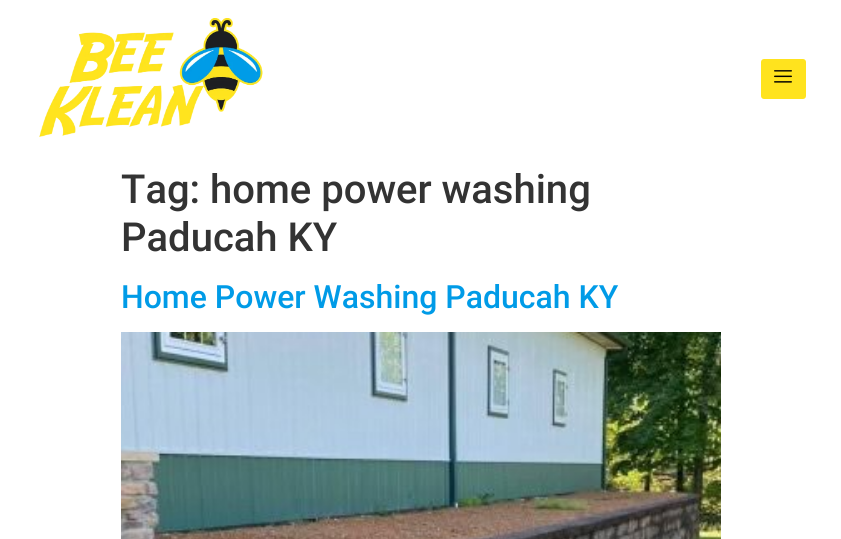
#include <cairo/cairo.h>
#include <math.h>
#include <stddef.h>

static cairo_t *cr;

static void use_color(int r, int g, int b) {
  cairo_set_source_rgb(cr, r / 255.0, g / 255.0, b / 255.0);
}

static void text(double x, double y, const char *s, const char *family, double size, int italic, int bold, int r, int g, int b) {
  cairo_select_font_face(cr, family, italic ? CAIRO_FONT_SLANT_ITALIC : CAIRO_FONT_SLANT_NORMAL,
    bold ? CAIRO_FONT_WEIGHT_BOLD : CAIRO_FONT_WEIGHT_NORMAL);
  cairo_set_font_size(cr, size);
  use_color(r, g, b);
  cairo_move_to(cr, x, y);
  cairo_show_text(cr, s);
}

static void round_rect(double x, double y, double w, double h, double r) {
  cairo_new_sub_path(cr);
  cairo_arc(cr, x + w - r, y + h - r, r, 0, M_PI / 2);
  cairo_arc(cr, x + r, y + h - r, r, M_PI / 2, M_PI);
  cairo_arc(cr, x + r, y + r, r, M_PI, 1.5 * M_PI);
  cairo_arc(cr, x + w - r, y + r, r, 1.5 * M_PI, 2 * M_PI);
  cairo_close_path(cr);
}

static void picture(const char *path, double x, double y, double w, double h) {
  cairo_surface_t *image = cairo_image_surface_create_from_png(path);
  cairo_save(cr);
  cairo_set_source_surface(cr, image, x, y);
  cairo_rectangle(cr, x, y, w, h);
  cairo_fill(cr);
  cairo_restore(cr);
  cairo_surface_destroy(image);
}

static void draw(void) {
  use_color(255, 255, 255);
  cairo_paint(cr);
  picture("img_01.png", 39, 18, 224, 119);
  use_color(255, 227, 30);
  round_rect(761, 59, 45, 40, 3);
  cairo_fill(cr);
  picture("img_02.png", 774, 70, 18, 13);
  picture("img_03.png", 121, 332, 600, 207);
  text(121, 203, "Tag: home power washing", "Roboto Medium", 40, 0, 0, 51, 51, 51);
  text(121, 251, "Paducah KY", "Roboto Medium", 40, 0, 0, 51, 51, 51);
  text(121, 308, "Home Power Washing Paducah KY", "Roboto Medium", 32, 0, 0, 0, 155, 231);
}

int main(void) {
  cairo_surface_t *surface = cairo_image_surface_create(CAIRO_FORMAT_RGB24, 841, 539);
  cr = cairo_create(surface);
  cairo_font_options_t *options = cairo_font_options_create();
  cairo_font_options_set_hint_metrics(options, CAIRO_HINT_METRICS_OFF);
  cairo_font_options_set_hint_style(options, CAIRO_HINT_STYLE_NONE);
  cairo_set_font_options(cr, options);
  cairo_set_miter_limit(cr, 4);
  draw();
  cairo_surface_write_to_png(surface, "out.png");
  cairo_font_options_destroy(options);
  cairo_destroy(cr);
  cairo_surface_destroy(surface);
  return 0;
}
